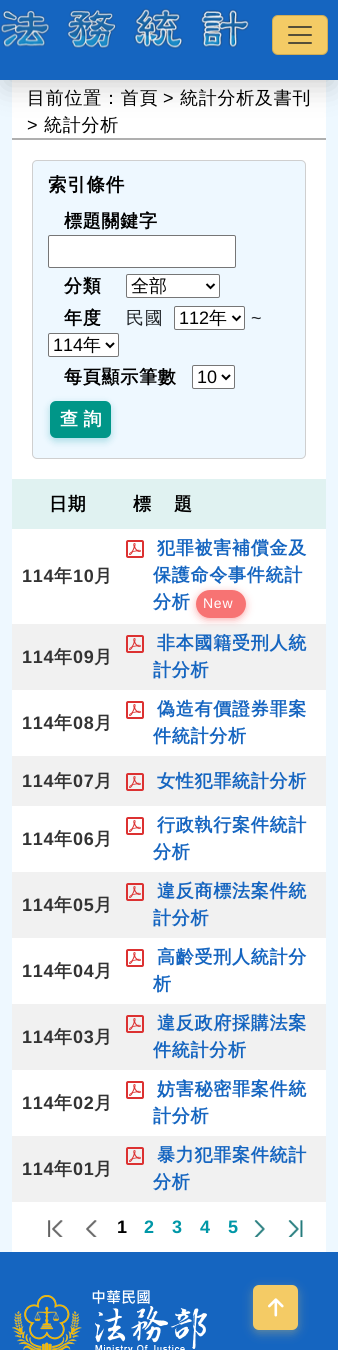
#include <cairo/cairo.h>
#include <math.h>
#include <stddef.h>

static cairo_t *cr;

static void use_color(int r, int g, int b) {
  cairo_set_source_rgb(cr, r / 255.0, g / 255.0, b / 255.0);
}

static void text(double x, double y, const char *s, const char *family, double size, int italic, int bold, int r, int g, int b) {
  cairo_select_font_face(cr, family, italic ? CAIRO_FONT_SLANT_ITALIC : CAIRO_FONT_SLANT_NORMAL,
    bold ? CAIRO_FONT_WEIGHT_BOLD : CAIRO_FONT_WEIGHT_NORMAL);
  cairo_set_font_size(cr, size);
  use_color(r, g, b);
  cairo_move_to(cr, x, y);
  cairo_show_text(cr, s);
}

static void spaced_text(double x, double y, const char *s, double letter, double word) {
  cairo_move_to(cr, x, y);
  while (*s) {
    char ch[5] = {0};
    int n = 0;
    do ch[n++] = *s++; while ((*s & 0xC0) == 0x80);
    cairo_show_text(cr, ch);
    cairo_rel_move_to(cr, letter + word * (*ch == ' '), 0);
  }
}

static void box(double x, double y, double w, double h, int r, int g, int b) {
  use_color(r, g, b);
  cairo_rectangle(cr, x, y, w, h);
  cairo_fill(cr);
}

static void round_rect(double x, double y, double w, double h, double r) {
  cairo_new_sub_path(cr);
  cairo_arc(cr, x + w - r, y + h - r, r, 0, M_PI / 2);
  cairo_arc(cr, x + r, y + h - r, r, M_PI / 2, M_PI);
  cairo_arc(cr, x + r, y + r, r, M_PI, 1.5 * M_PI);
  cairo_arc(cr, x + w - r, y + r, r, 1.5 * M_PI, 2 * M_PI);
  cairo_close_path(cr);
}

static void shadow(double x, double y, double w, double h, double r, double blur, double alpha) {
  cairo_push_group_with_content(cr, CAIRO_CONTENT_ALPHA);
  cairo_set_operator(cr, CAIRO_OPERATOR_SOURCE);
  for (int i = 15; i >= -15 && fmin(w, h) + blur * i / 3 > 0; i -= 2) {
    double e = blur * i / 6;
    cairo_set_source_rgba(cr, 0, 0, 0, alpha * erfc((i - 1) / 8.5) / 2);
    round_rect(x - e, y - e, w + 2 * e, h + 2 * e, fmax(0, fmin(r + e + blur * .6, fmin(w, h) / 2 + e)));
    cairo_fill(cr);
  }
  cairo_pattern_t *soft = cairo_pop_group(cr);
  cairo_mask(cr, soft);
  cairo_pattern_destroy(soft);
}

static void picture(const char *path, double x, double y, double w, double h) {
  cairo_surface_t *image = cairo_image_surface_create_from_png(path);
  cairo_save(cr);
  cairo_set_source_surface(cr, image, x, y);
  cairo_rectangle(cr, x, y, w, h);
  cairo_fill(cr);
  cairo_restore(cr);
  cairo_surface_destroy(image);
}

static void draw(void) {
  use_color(238, 248, 255);
  cairo_paint(cr);
  box(12, 80, 314, 58, 255, 255, 255);
  use_color(0, 0, 0);
  shadow(5, 15, 328, 70, 0, 15, 0.2);
  box(0, 0, 338, 80, 21, 101, 192);
  picture("img_01.png", 0, 8, 250, 41);
  use_color(244, 203, 101);
  round_rect(272, 15, 56, 40, 6);
  cairo_fill(cr);
  round_rect(272.5, 15.5, 55, 39, 5.5);
  cairo_set_source_rgba(cr, 0, 0, 0, 0.15);
  cairo_set_line_width(cr, 1);
  cairo_stroke(cr);
  picture("img_02.png", 288, 26, 24, 18);
  box(12, 138, 314, 2, 175, 175, 175);
  box(12, 140, 314, 339, 255, 255, 255);
  use_color(238, 248, 255);
  round_rect(32.5, 160.5, 273, 298, 4.5);
  cairo_fill_preserve(cr);
  use_color(207, 207, 207);
  cairo_stroke(cr);
  use_color(255, 255, 255);
  round_rect(48.5, 235.5, 187, 32, 1.5);
  cairo_fill_preserve(cr);
  use_color(118, 118, 118);
  cairo_stroke(cr);
  use_color(255, 255, 255);
  round_rect(126.5, 274.5, 93, 23, 1.5);
  cairo_fill_preserve(cr);
  use_color(118, 118, 118);
  cairo_stroke(cr);
  cairo_new_path(cr);
  cairo_move_to(cr, 206.5, 284);
  cairo_line_to(cr, 210.5, 288);
  cairo_line_to(cr, 214.5, 284);
  use_color(0, 0, 0);
  cairo_set_line_width(cr, 2);
  cairo_stroke(cr);
  use_color(255, 255, 255);
  round_rect(174.5, 306.5, 70, 23, 1.5);
  cairo_fill_preserve(cr);
  use_color(118, 118, 118);
  cairo_set_line_width(cr, 1);
  cairo_stroke(cr);
  cairo_new_path(cr);
  cairo_move_to(cr, 232.5, 316);
  cairo_line_to(cr, 236.5, 320);
  cairo_line_to(cr, 240.5, 316);
  use_color(0, 0, 0);
  cairo_set_line_width(cr, 2);
  cairo_stroke(cr);
  use_color(255, 255, 255);
  round_rect(48.5, 333.5, 70, 23, 1.5);
  cairo_fill_preserve(cr);
  use_color(118, 118, 118);
  cairo_set_line_width(cr, 1);
  cairo_stroke(cr);
  cairo_new_path(cr);
  cairo_move_to(cr, 106, 343);
  cairo_line_to(cr, 110, 347);
  cairo_line_to(cr, 114, 343);
  use_color(0, 0, 0);
  cairo_set_line_width(cr, 2);
  cairo_stroke(cr);
  use_color(255, 255, 255);
  round_rect(192.5, 365.5, 42, 23, 1.5);
  cairo_fill_preserve(cr);
  use_color(118, 118, 118);
  cairo_set_line_width(cr, 1);
  cairo_stroke(cr);
  cairo_new_path(cr);
  cairo_move_to(cr, 222, 375);
  cairo_line_to(cr, 226, 379);
  cairo_line_to(cr, 230, 375);
  use_color(0, 0, 0);
  cairo_set_line_width(cr, 2);
  cairo_stroke(cr);
  use_color(0, 151, 167);
  shadow(50, 404, 61, 37, 6, 4, 0.3);
  use_color(0, 150, 136);
  round_rect(50, 401, 61, 37, 6);
  cairo_fill(cr);
  box(12, 479, 314, 50, 224, 242, 241);
  box(12, 529, 314, 95, 255, 255, 255);
  picture("img_03.png", 126, 540, 18, 18);
  box(12, 624, 314, 66, 241, 241, 241);
  use_color(247, 115, 115);
  shadow(199, 595, 44, 22, 11, 5, 1);
  use_color(247, 115, 115);
  round_rect(196, 590, 50, 28, 14);
  cairo_fill(cr);
  picture("img_04.png", 126, 635, 18, 18);
  box(12, 690, 314, 66, 255, 255, 255);
  picture("img_03.png", 126, 701, 18, 18);
  box(12, 756, 314, 50, 241, 241, 241);
  picture("img_04.png", 126, 773, 18, 18);
  box(12, 806, 314, 66, 255, 255, 255);
  picture("img_03.png", 126, 817, 18, 18);
  box(12, 872, 314, 66, 241, 241, 241);
  picture("img_04.png", 126, 883, 18, 18);
  box(12, 938, 314, 66, 255, 255, 255);
  picture("img_03.png", 126, 949, 18, 18);
  box(12, 1004, 314, 66, 241, 241, 241);
  picture("img_04.png", 126, 1015, 18, 18);
  box(12, 1070, 314, 66, 255, 255, 255);
  picture("img_03.png", 126, 1081, 18, 18);
  box(12, 1136, 314, 66, 241, 241, 241);
  picture("img_04.png", 126, 1147, 18, 18);
  box(12, 1202, 314, 50, 255, 255, 255);
  picture("img_05.png", 48, 1220, 15, 17);
  picture("img_06.png", 86, 1220, 11, 17);
  picture("img_07.png", 254, 1220, 11, 17);
  picture("img_08.png", 288, 1220, 15, 17);
  box(0, 1252, 338, 98, 21, 101, 192);
  picture("img_09.png", 12, 1290, 195, 60);
  use_color(244, 203, 101);
  shadow(253, 1288, 45, 45, 6, 5, 0.35);
  use_color(244, 203, 101);
  round_rect(253, 1285, 45, 45, 6);
  cairo_fill(cr);
  picture("img_10.png", 268, 1298, 16, 19);
  cairo_select_font_face(cr, "WenQuanYi Zen Hei Medium", CAIRO_FONT_SLANT_NORMAL, CAIRO_FONT_WEIGHT_NORMAL);
  cairo_set_font_size(cr, 18);
  use_color(0, 0, 0);
  spaced_text(27, 104, "目前位置：首頁", 0.75, 0);
  cairo_select_font_face(cr, "Liberation Sans", CAIRO_FONT_SLANT_NORMAL, CAIRO_FONT_WEIGHT_NORMAL);
  spaced_text(163, 104, ">", 0.75, 0);
  cairo_select_font_face(cr, "WenQuanYi Zen Hei Medium", CAIRO_FONT_SLANT_NORMAL, CAIRO_FONT_WEIGHT_NORMAL);
  spaced_text(180, 104, "統計分析及書刊", 0.75, 0);
  cairo_select_font_face(cr, "Liberation Sans", CAIRO_FONT_SLANT_NORMAL, CAIRO_FONT_WEIGHT_NORMAL);
  spaced_text(27, 131, ">", 0.75, 0);
  cairo_select_font_face(cr, "WenQuanYi Zen Hei Medium", CAIRO_FONT_SLANT_NORMAL, CAIRO_FONT_WEIGHT_NORMAL);
  spaced_text(44, 131, "統計分析", 0.75, 0);
  cairo_select_font_face(cr, "WenQuanYi Zen Hei", CAIRO_FONT_SLANT_NORMAL, CAIRO_FONT_WEIGHT_BOLD);
  cairo_set_font_size(cr, 18.5);
  spaced_text(48, 191, "索引條件", 0.75, 0);
  cairo_set_font_size(cr, 18);
  spaced_text(64, 227, "標題關鍵字", 0.75, 0);
  spaced_text(64, 292, "分類", 0.75, 0);
  text(131, 292, "全部", "WenQuanYi Zen Hei Medium", 18, 0, 0, 0, 0, 0);
  cairo_select_font_face(cr, "WenQuanYi Zen Hei", CAIRO_FONT_SLANT_NORMAL, CAIRO_FONT_WEIGHT_BOLD);
  spaced_text(64, 324, "年度", 0.75, 0);
  cairo_select_font_face(cr, "WenQuanYi Zen Hei Medium", CAIRO_FONT_SLANT_NORMAL, CAIRO_FONT_WEIGHT_NORMAL);
  use_color(33, 37, 41);
  spaced_text(126, 324, "民國", 0.75, 0);
  text(179, 324, "112", "Liberation Sans", 18, 0, 0, 0, 0, 0);
  text(209, 324, "年", "WenQuanYi Zen Hei Medium", 18, 0, 0, 0, 0, 0);
  cairo_select_font_face(cr, "Liberation Sans", CAIRO_FONT_SLANT_NORMAL, CAIRO_FONT_WEIGHT_NORMAL);
  use_color(33, 37, 41);
  spaced_text(251, 324, "~", 0.75, 0);
  text(53, 351, "114", "Liberation Sans", 18, 0, 0, 0, 0, 0);
  text(83, 351, "年", "WenQuanYi Zen Hei Medium", 18, 0, 0, 0, 0, 0);
  cairo_select_font_face(cr, "WenQuanYi Zen Hei", CAIRO_FONT_SLANT_NORMAL, CAIRO_FONT_WEIGHT_BOLD);
  spaced_text(64, 383, "每頁顯示筆數", 0.75, 0);
  text(197, 383, "10", "Liberation Sans", 18, 0, 0, 0, 0, 0);
  text(60, 425, "查 詢", "WenQuanYi Zen Hei", 18, 0, 1, 255, 255, 255);
  use_color(0, 0, 0);
  spaced_text(49, 510, "日期", 0.75, 0);
  spaced_text(133, 510, "標", 0.75, 0);
  spaced_text(174, 510, "題", 0.75, 0);
  cairo_select_font_face(cr, "Liberation Sans", CAIRO_FONT_SLANT_NORMAL, CAIRO_FONT_WEIGHT_BOLD);
  use_color(51, 51, 51);
  spaced_text(22, 582, "114", 0.75, 0);
  cairo_select_font_face(cr, "WenQuanYi Zen Hei", CAIRO_FONT_SLANT_NORMAL, CAIRO_FONT_WEIGHT_BOLD);
  spaced_text(54, 582, "年", 0.75, 0);
  cairo_select_font_face(cr, "Liberation Sans", CAIRO_FONT_SLANT_NORMAL, CAIRO_FONT_WEIGHT_BOLD);
  spaced_text(73, 582, "10", 0.75, 0);
  cairo_select_font_face(cr, "WenQuanYi Zen Hei", CAIRO_FONT_SLANT_NORMAL, CAIRO_FONT_WEIGHT_BOLD);
  spaced_text(94, 582, "月", 0.75, 0);
  use_color(21, 101, 192);
  spaced_text(157, 554, "犯罪被害補償金及", 0.75, 0);
  spaced_text(153, 581, "保護命令事件統計", 0.75, 0);
  spaced_text(153, 608, "分析", 0.75, 0);
  cairo_select_font_face(cr, "Liberation Sans", CAIRO_FONT_SLANT_NORMAL, CAIRO_FONT_WEIGHT_NORMAL);
  cairo_set_font_size(cr, 14);
  use_color(255, 255, 255);
  spaced_text(203, 608, "New", 0.75, 0);
  cairo_select_font_face(cr, "Liberation Sans", CAIRO_FONT_SLANT_NORMAL, CAIRO_FONT_WEIGHT_BOLD);
  cairo_set_font_size(cr, 18);
  use_color(51, 51, 51);
  spaced_text(22, 663, "114", 0.75, 0);
  cairo_select_font_face(cr, "WenQuanYi Zen Hei", CAIRO_FONT_SLANT_NORMAL, CAIRO_FONT_WEIGHT_BOLD);
  spaced_text(54, 663, "年", 0.75, 0);
  cairo_select_font_face(cr, "Liberation Sans", CAIRO_FONT_SLANT_NORMAL, CAIRO_FONT_WEIGHT_BOLD);
  spaced_text(73, 663, "09", 0.75, 0);
  cairo_select_font_face(cr, "WenQuanYi Zen Hei", CAIRO_FONT_SLANT_NORMAL, CAIRO_FONT_WEIGHT_BOLD);
  spaced_text(94, 663, "月", 0.75, 0);
  use_color(21, 101, 192);
  spaced_text(157, 649, "非本國籍受刑人統", 0.75, 0);
  spaced_text(153, 676, "計分析", 0.75, 0);
  cairo_select_font_face(cr, "Liberation Sans", CAIRO_FONT_SLANT_NORMAL, CAIRO_FONT_WEIGHT_BOLD);
  use_color(51, 51, 51);
  spaced_text(22, 729, "114", 0.75, 0);
  cairo_select_font_face(cr, "WenQuanYi Zen Hei", CAIRO_FONT_SLANT_NORMAL, CAIRO_FONT_WEIGHT_BOLD);
  spaced_text(54, 729, "年", 0.75, 0);
  cairo_select_font_face(cr, "Liberation Sans", CAIRO_FONT_SLANT_NORMAL, CAIRO_FONT_WEIGHT_BOLD);
  spaced_text(73, 729, "08", 0.75, 0);
  cairo_select_font_face(cr, "WenQuanYi Zen Hei", CAIRO_FONT_SLANT_NORMAL, CAIRO_FONT_WEIGHT_BOLD);
  spaced_text(94, 729, "月", 0.75, 0);
  use_color(21, 101, 192);
  spaced_text(157, 715, "偽造有價證券罪案", 0.75, 0);
  spaced_text(153, 742, "件統計分析", 0.75, 0);
  cairo_select_font_face(cr, "Liberation Sans", CAIRO_FONT_SLANT_NORMAL, CAIRO_FONT_WEIGHT_BOLD);
  use_color(51, 51, 51);
  spaced_text(22, 787, "114", 0.75, 0);
  cairo_select_font_face(cr, "WenQuanYi Zen Hei", CAIRO_FONT_SLANT_NORMAL, CAIRO_FONT_WEIGHT_BOLD);
  spaced_text(54, 787, "年", 0.75, 0);
  cairo_select_font_face(cr, "Liberation Sans", CAIRO_FONT_SLANT_NORMAL, CAIRO_FONT_WEIGHT_BOLD);
  spaced_text(73, 787, "07", 0.75, 0);
  cairo_select_font_face(cr, "WenQuanYi Zen Hei", CAIRO_FONT_SLANT_NORMAL, CAIRO_FONT_WEIGHT_BOLD);
  spaced_text(94, 787, "月", 0.75, 0);
  use_color(21, 101, 192);
  spaced_text(157, 787, "女性犯罪統計分析", 0.75, 0);
  cairo_select_font_face(cr, "Liberation Sans", CAIRO_FONT_SLANT_NORMAL, CAIRO_FONT_WEIGHT_BOLD);
  use_color(51, 51, 51);
  spaced_text(22, 845, "114", 0.75, 0);
  cairo_select_font_face(cr, "WenQuanYi Zen Hei", CAIRO_FONT_SLANT_NORMAL, CAIRO_FONT_WEIGHT_BOLD);
  spaced_text(54, 845, "年", 0.75, 0);
  cairo_select_font_face(cr, "Liberation Sans", CAIRO_FONT_SLANT_NORMAL, CAIRO_FONT_WEIGHT_BOLD);
  spaced_text(73, 845, "06", 0.75, 0);
  cairo_select_font_face(cr, "WenQuanYi Zen Hei", CAIRO_FONT_SLANT_NORMAL, CAIRO_FONT_WEIGHT_BOLD);
  spaced_text(94, 845, "月", 0.75, 0);
  use_color(21, 101, 192);
  spaced_text(157, 831, "行政執行案件統計", 0.75, 0);
  spaced_text(153, 858, "分析", 0.75, 0);
  cairo_select_font_face(cr, "Liberation Sans", CAIRO_FONT_SLANT_NORMAL, CAIRO_FONT_WEIGHT_BOLD);
  use_color(51, 51, 51);
  spaced_text(22, 911, "114", 0.75, 0);
  cairo_select_font_face(cr, "WenQuanYi Zen Hei", CAIRO_FONT_SLANT_NORMAL, CAIRO_FONT_WEIGHT_BOLD);
  spaced_text(54, 911, "年", 0.75, 0);
  cairo_select_font_face(cr, "Liberation Sans", CAIRO_FONT_SLANT_NORMAL, CAIRO_FONT_WEIGHT_BOLD);
  spaced_text(73, 911, "05", 0.75, 0);
  cairo_select_font_face(cr, "WenQuanYi Zen Hei", CAIRO_FONT_SLANT_NORMAL, CAIRO_FONT_WEIGHT_BOLD);
  spaced_text(94, 911, "月", 0.75, 0);
  use_color(21, 101, 192);
  spaced_text(157, 897, "違反商標法案件統", 0.75, 0);
  spaced_text(153, 924, "計分析", 0.75, 0);
  cairo_select_font_face(cr, "Liberation Sans", CAIRO_FONT_SLANT_NORMAL, CAIRO_FONT_WEIGHT_BOLD);
  use_color(51, 51, 51);
  spaced_text(22, 977, "114", 0.75, 0);
  cairo_select_font_face(cr, "WenQuanYi Zen Hei", CAIRO_FONT_SLANT_NORMAL, CAIRO_FONT_WEIGHT_BOLD);
  spaced_text(54, 977, "年", 0.75, 0);
  cairo_select_font_face(cr, "Liberation Sans", CAIRO_FONT_SLANT_NORMAL, CAIRO_FONT_WEIGHT_BOLD);
  spaced_text(73, 977, "04", 0.75, 0);
  cairo_select_font_face(cr, "WenQuanYi Zen Hei", CAIRO_FONT_SLANT_NORMAL, CAIRO_FONT_WEIGHT_BOLD);
  spaced_text(94, 977, "月", 0.75, 0);
  use_color(21, 101, 192);
  spaced_text(157, 963, "高齡受刑人統計分", 0.75, 0);
  spaced_text(153, 990, "析", 0.75, 0);
  cairo_select_font_face(cr, "Liberation Sans", CAIRO_FONT_SLANT_NORMAL, CAIRO_FONT_WEIGHT_BOLD);
  use_color(51, 51, 51);
  spaced_text(22, 1043, "114", 0.75, 0);
  cairo_select_font_face(cr, "WenQuanYi Zen Hei", CAIRO_FONT_SLANT_NORMAL, CAIRO_FONT_WEIGHT_BOLD);
  spaced_text(54, 1043, "年", 0.75, 0);
  cairo_select_font_face(cr, "Liberation Sans", CAIRO_FONT_SLANT_NORMAL, CAIRO_FONT_WEIGHT_BOLD);
  spaced_text(73, 1043, "03", 0.75, 0);
  cairo_select_font_face(cr, "WenQuanYi Zen Hei", CAIRO_FONT_SLANT_NORMAL, CAIRO_FONT_WEIGHT_BOLD);
  spaced_text(94, 1043, "月", 0.75, 0);
  use_color(21, 101, 192);
  spaced_text(157, 1029, "違反政府採購法案", 0.75, 0);
  spaced_text(153, 1056, "件統計分析", 0.75, 0);
  cairo_select_font_face(cr, "Liberation Sans", CAIRO_FONT_SLANT_NORMAL, CAIRO_FONT_WEIGHT_BOLD);
  use_color(51, 51, 51);
  spaced_text(22, 1109, "114", 0.75, 0);
  cairo_select_font_face(cr, "WenQuanYi Zen Hei", CAIRO_FONT_SLANT_NORMAL, CAIRO_FONT_WEIGHT_BOLD);
  spaced_text(54, 1109, "年", 0.75, 0);
  cairo_select_font_face(cr, "Liberation Sans", CAIRO_FONT_SLANT_NORMAL, CAIRO_FONT_WEIGHT_BOLD);
  spaced_text(73, 1109, "02", 0.75, 0);
  cairo_select_font_face(cr, "WenQuanYi Zen Hei", CAIRO_FONT_SLANT_NORMAL, CAIRO_FONT_WEIGHT_BOLD);
  spaced_text(94, 1109, "月", 0.75, 0);
  use_color(21, 101, 192);
  spaced_text(157, 1095, "妨害秘密罪案件統", 0.75, 0);
  spaced_text(153, 1122, "計分析", 0.75, 0);
  cairo_select_font_face(cr, "Liberation Sans", CAIRO_FONT_SLANT_NORMAL, CAIRO_FONT_WEIGHT_BOLD);
  use_color(51, 51, 51);
  spaced_text(22, 1175, "114", 0.75, 0);
  cairo_select_font_face(cr, "WenQuanYi Zen Hei", CAIRO_FONT_SLANT_NORMAL, CAIRO_FONT_WEIGHT_BOLD);
  spaced_text(54, 1175, "年", 0.75, 0);
  cairo_select_font_face(cr, "Liberation Sans", CAIRO_FONT_SLANT_NORMAL, CAIRO_FONT_WEIGHT_BOLD);
  spaced_text(73, 1175, "01", 0.75, 0);
  cairo_select_font_face(cr, "WenQuanYi Zen Hei", CAIRO_FONT_SLANT_NORMAL, CAIRO_FONT_WEIGHT_BOLD);
  spaced_text(94, 1175, "月", 0.75, 0);
  use_color(21, 101, 192);
  spaced_text(157, 1161, "暴力犯罪案件統計", 0.75, 0);
  spaced_text(153, 1188, "分析", 0.75, 0);
  cairo_select_font_face(cr, "Liberation Sans", CAIRO_FONT_SLANT_NORMAL, CAIRO_FONT_WEIGHT_BOLD);
  use_color(0, 0, 0);
  spaced_text(117, 1233, "1", 0.75, 0);
  use_color(0, 151, 167);
  spaced_text(144, 1233, "2", 0.75, 0);
  spaced_text(172, 1233, "3", 0.75, 0);
  spaced_text(200, 1233, "4", 0.75, 0);
  spaced_text(228, 1233, "5", 0.75, 0);
}

int main(void) {
  cairo_surface_t *surface = cairo_image_surface_create(CAIRO_FORMAT_RGB24, 338, 1350);
  cr = cairo_create(surface);
  cairo_font_options_t *options = cairo_font_options_create();
  cairo_font_options_set_hint_metrics(options, CAIRO_HINT_METRICS_OFF);
  cairo_font_options_set_hint_style(options, CAIRO_HINT_STYLE_NONE);
  cairo_set_font_options(cr, options);
  cairo_set_miter_limit(cr, 4);
  draw();
  cairo_surface_write_to_png(surface, "out.png");
  cairo_font_options_destroy(options);
  cairo_destroy(cr);
  cairo_surface_destroy(surface);
  return 0;
}
